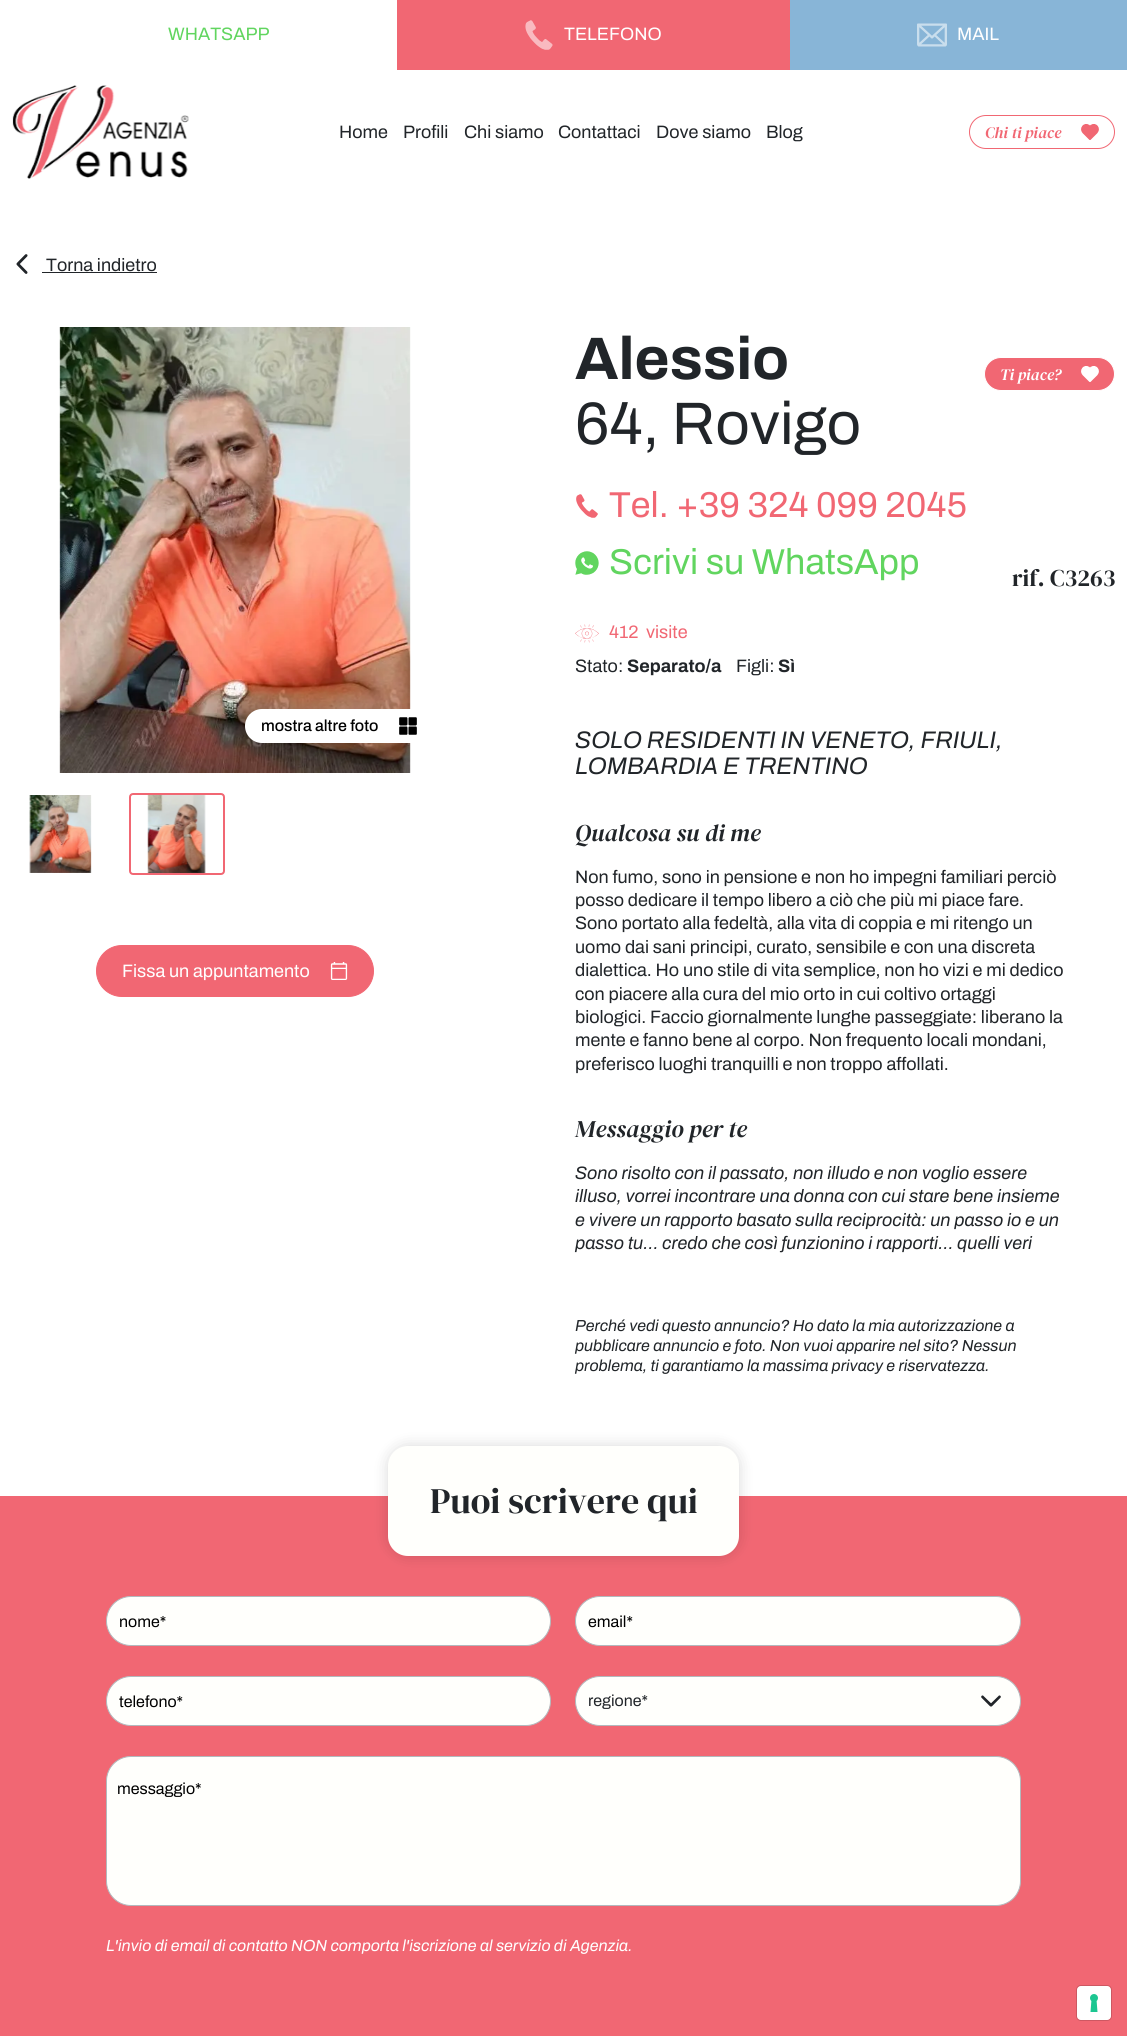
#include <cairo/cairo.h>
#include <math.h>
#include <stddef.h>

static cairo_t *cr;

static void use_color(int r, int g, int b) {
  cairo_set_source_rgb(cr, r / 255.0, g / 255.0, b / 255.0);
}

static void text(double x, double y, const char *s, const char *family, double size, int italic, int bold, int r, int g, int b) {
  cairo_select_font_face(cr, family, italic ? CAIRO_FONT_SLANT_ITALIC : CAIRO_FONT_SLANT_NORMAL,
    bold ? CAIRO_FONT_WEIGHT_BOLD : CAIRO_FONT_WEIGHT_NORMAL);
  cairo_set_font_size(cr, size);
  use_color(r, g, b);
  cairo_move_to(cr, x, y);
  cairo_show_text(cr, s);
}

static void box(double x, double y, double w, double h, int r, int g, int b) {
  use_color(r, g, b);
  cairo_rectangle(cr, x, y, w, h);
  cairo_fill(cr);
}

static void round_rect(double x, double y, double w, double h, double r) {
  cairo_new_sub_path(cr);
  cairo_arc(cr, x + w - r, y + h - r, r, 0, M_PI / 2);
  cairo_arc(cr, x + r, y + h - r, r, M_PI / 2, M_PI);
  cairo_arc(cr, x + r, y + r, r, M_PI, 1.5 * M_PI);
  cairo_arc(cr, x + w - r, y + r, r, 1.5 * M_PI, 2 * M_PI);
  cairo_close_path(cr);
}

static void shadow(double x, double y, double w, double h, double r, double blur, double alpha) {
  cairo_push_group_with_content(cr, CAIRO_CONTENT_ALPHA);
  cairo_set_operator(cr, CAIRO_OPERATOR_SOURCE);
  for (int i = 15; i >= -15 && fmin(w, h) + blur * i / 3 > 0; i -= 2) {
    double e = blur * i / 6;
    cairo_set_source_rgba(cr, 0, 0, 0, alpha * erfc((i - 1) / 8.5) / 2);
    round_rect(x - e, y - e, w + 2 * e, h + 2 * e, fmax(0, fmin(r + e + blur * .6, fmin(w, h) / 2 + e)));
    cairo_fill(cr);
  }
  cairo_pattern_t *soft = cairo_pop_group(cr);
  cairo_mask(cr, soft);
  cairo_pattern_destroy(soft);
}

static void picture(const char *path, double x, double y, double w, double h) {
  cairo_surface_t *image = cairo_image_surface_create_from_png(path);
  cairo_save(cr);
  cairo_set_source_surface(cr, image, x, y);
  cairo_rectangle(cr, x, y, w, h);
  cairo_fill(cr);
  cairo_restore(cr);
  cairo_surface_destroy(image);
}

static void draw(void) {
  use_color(255, 255, 255);
  cairo_paint(cr);
  box(397, 0, 393, 70, 241, 103, 115);
  picture("img_01.png", 525, 20, 28, 30);
  box(790, 0, 337, 70, 136, 181, 215);
  picture("img_02.png", 917, 23, 30, 24);
  picture("img_03.png", 12, 85, 177, 94);
  round_rect(969.5, 115.5, 145, 33, 16.5);
  use_color(241, 103, 115);
  cairo_set_line_width(cr, 1);
  cairo_stroke(cr);
  picture("img_04.png", 1081, 124, 18, 16);
  picture("img_05.png", 16, 254, 12, 20);
  box(42, 272, 115, 1, 33, 37, 41);
  picture("img_06.png", 59, 327, 352, 446);
  use_color(255, 255, 255);
  round_rect(245, 709, 188, 34, 17);
  cairo_fill(cr);
  picture("img_07.png", 399, 717, 18, 18);
  picture("img_08.png", 29, 795, 63, 78);
  round_rect(130, 794, 94, 80, 3);
  use_color(241, 103, 115);
  cairo_set_line_width(cr, 2);
  cairo_stroke(cr);
  picture("img_09.png", 147, 795, 59, 78);
  round_rect(96.5, 945.5, 277, 51, 25.5);
  cairo_fill_preserve(cr);
  cairo_set_line_width(cr, 1);
  cairo_stroke(cr);
  picture("img_10.png", 330, 962, 18, 18);
  round_rect(984.5, 357.5, 130, 33, 16.5);
  cairo_fill_preserve(cr);
  use_color(255, 255, 255);
  cairo_stroke(cr);
  picture("img_11.png", 1081, 366, 18, 16);
  picture("img_12.png", 576, 494, 22, 24);
  picture("img_13.png", 575, 551, 24, 24);
  picture("img_14.png", 575, 624, 24, 19);
  box(0, 1496, 1127, 540, 241, 103, 115);
  use_color(0, 0, 0);
  shadow(388, 1446, 351, 110, 20, 7.5, 0.15);
  use_color(255, 255, 252);
  round_rect(388, 1446, 351, 110, 20);
  cairo_fill(cr);
  round_rect(106.5, 1596.5, 444, 49, 24.5);
  cairo_fill_preserve(cr);
  use_color(178, 185, 189);
  cairo_stroke(cr);
  use_color(255, 255, 252);
  round_rect(575.5, 1596.5, 445, 49, 24.5);
  cairo_fill_preserve(cr);
  use_color(178, 185, 189);
  cairo_stroke(cr);
  use_color(255, 255, 252);
  round_rect(106.5, 1676.5, 444, 49, 24.5);
  cairo_fill_preserve(cr);
  use_color(178, 185, 189);
  cairo_stroke(cr);
  use_color(255, 255, 252);
  round_rect(575.5, 1676.5, 445, 49, 24.5);
  cairo_fill_preserve(cr);
  use_color(178, 185, 189);
  cairo_stroke(cr);
  picture("img_15.png", 981, 1695, 20, 12);
  use_color(255, 255, 252);
  round_rect(106.5, 1756.5, 914, 149, 24.5);
  cairo_fill_preserve(cr);
  use_color(178, 185, 189);
  cairo_stroke(cr);
  round_rect(1076.5, 1985.5, 35, 35, 4.5);
  use_color(205, 88, 98);
  cairo_stroke(cr);
  use_color(255, 255, 255);
  round_rect(1077, 1986, 34, 34, 4);
  cairo_fill(cr);
  picture("img_16.png", 1090, 1994, 8, 18);
  text(168, 40, "WHATSAPP", "Archivo", 18, 0, 0, 97, 213, 95);
  text(564, 40, "TELEFONO", "Archivo", 18, 0, 0, 255, 255, 255);
  text(957, 40, "MAIL", "Archivo", 18, 0, 0, 255, 255, 255);
  text(339, 138, "Home", "Archivo", 18, 0, 0, 33, 37, 41);
  text(403, 138, "Profili", "Archivo", 18, 0, 0, 33, 37, 41);
  text(464, 138, "Chi siamo", "Archivo", 18, 0, 0, 33, 37, 41);
  text(558, 138, "Contattaci", "Archivo", 18, 0, 0, 33, 37, 41);
  text(656, 138, "Dove siamo", "Archivo", 18, 0, 0, 33, 37, 41);
  text(766, 138, "Blog", "Archivo", 18, 0, 0, 33, 37, 41);
  text(985, 138, "Chi ti piace", "DM Serif Display", 16, 1, 0, 241, 103, 115);
  text(46, 271, "Torna indietro", "Archivo", 18, 0, 0, 33, 37, 41);
  text(261, 731, "mostra altre foto", "Archivo Medium", 16, 0, 0, 0, 0, 0);
  text(122, 977, "Fissa un appuntamento", "Archivo", 18, 0, 0, 255, 255, 255);
  text(575, 379, "Alessio", "Archivo", 60, 0, 1, 33, 37, 41);
  text(575, 444, "64, Rovigo", "Archivo", 60, 0, 0, 33, 37, 41);
  text(1000, 380, "Ti piace?", "DM Serif Display", 16, 1, 0, 255, 255, 255);
  text(609, 517, "Tel. +39 324 099 2045", "Archivo", 36, 0, 0, 241, 103, 115);
  text(609, 574, "Scrivi su WhatsApp", "Archivo", 36, 0, 0, 97, 213, 95);
  text(1012, 586, "rif. C3263", "DM Serif Display", 24, 0, 0, 33, 37, 41);
  text(609, 638, "412", "Archivo", 18, 0, 0, 241, 103, 115);
  text(646, 638, "visite", "Archivo", 18, 0, 0, 241, 103, 115);
  text(575, 672, "Stato:", "Archivo", 18, 0, 0, 33, 37, 41);
  text(627, 672, "Separato/a", "Archivo", 18, 0, 1, 33, 37, 41);
  text(736, 672, "Figli:", "Archivo", 18, 0, 0, 33, 37, 41);
  text(778, 672, "Sì", "Archivo", 18, 0, 1, 33, 37, 41);
  text(575, 748, "SOLO RESIDENTI IN VENETO, FRIULI,", "Archivo SemiBold", 24, 1, 0, 33, 37, 41);
  text(575, 774, "LOMBARDIA E TRENTINO", "Archivo SemiBold", 24, 1, 0, 33, 37, 41);
  text(575, 841, "Qualcosa su di me", "DM Serif Display", 24, 1, 0, 33, 37, 41);
  text(575, 883, "Non fumo, sono in pensione e non ho impegni familiari perciò", "Archivo", 18, 0, 0, 33, 37, 41);
  text(575, 906, "posso dedicare il tempo libero a ciò che più mi piace fare.", "Archivo", 18, 0, 0, 33, 37, 41);
  text(575, 929, "Sono portato alla fedeltà, alla vita di coppia e mi ritengo un", "Archivo", 18, 0, 0, 33, 37, 41);
  text(575, 953, "uomo dai sani principi, curato, sensibile e con una discreta", "Archivo", 18, 0, 0, 33, 37, 41);
  text(575, 976, "dialettica. Ho uno stile di vita semplice, non ho vizi e mi dedico", "Archivo", 18, 0, 0, 33, 37, 41);
  text(575, 1000, "con piacere alla cura del mio orto in cui coltivo ortaggi", "Archivo", 18, 0, 0, 33, 37, 41);
  text(575, 1023, "biologici. Faccio giornalmente lunghe passeggiate: liberano la", "Archivo", 18, 0, 0, 33, 37, 41);
  text(575, 1046, "mente e fanno bene al corpo. Non frequento locali mondani,", "Archivo", 18, 0, 0, 33, 37, 41);
  text(575, 1070, "preferisco luoghi tranquilli e non troppo affollati.", "Archivo", 18, 0, 0, 33, 37, 41);
  text(575, 1137, "Messaggio per te", "DM Serif Display", 24, 1, 0, 33, 37, 41);
  text(575, 1179, "Sono risolto con il passato, non illudo e non voglio essere", "Archivo SemiBold", 18, 1, 0, 33, 37, 41);
  text(575, 1202, "illuso, vorrei incontrare una donna con cui stare bene insieme", "Archivo SemiBold", 18, 1, 0, 33, 37, 41);
  text(575, 1226, "e vivere un rapporto basato sulla reciprocità: un passo io e un", "Archivo SemiBold", 18, 1, 0, 33, 37, 41);
  text(575, 1249, "passo tu… credo che così funzionino i rapporti… quelli veri", "Archivo SemiBold", 18, 1, 0, 33, 37, 41);
  text(575, 1331, "Perché vedi questo annuncio? Ho dato la mia autorizzazione a", "Archivo SemiBold", 16, 1, 0, 33, 37, 41);
  text(575, 1351, "pubblicare annuncio e foto. Non vuoi apparire nel sito? Nessun", "Archivo SemiBold", 16, 1, 0, 33, 37, 41);
  text(575, 1371, "problema, ti garantiamo la massima privacy e riservatezza.", "Archivo SemiBold", 16, 1, 0, 33, 37, 41);
  text(430, 1513, "Puoi scrivere qui", "DM Serif Display", 36, 0, 0, 33, 37, 41);
  text(119, 1627, "nome*", "Archivo", 16, 0, 0, 0, 0, 0);
  text(588, 1627, "email*", "Archivo", 16, 0, 0, 0, 0, 0);
  text(119, 1707, "telefono*", "Archivo", 16, 0, 0, 0, 0, 0);
  text(588, 1706, "regione*", "Archivo", 16, 0, 0, 33, 37, 41);
  text(117, 1794, "messaggio*", "Archivo", 16, 0, 0, 0, 0, 0);
  text(106, 1951, "L'invio di email di contatto NON comporta l'iscrizione al servizio di Agenzia.", "Archivo SemiBold", 16, 1, 0, 255, 255, 255);
}

int main(void) {
  cairo_surface_t *surface = cairo_image_surface_create(CAIRO_FORMAT_RGB24, 1127, 2036);
  cr = cairo_create(surface);
  cairo_font_options_t *options = cairo_font_options_create();
  cairo_font_options_set_hint_metrics(options, CAIRO_HINT_METRICS_OFF);
  cairo_font_options_set_hint_style(options, CAIRO_HINT_STYLE_NONE);
  cairo_set_font_options(cr, options);
  cairo_set_miter_limit(cr, 4);
  draw();
  cairo_surface_write_to_png(surface, "out.png");
  cairo_font_options_destroy(options);
  cairo_destroy(cr);
  cairo_surface_destroy(surface);
  return 0;
}
